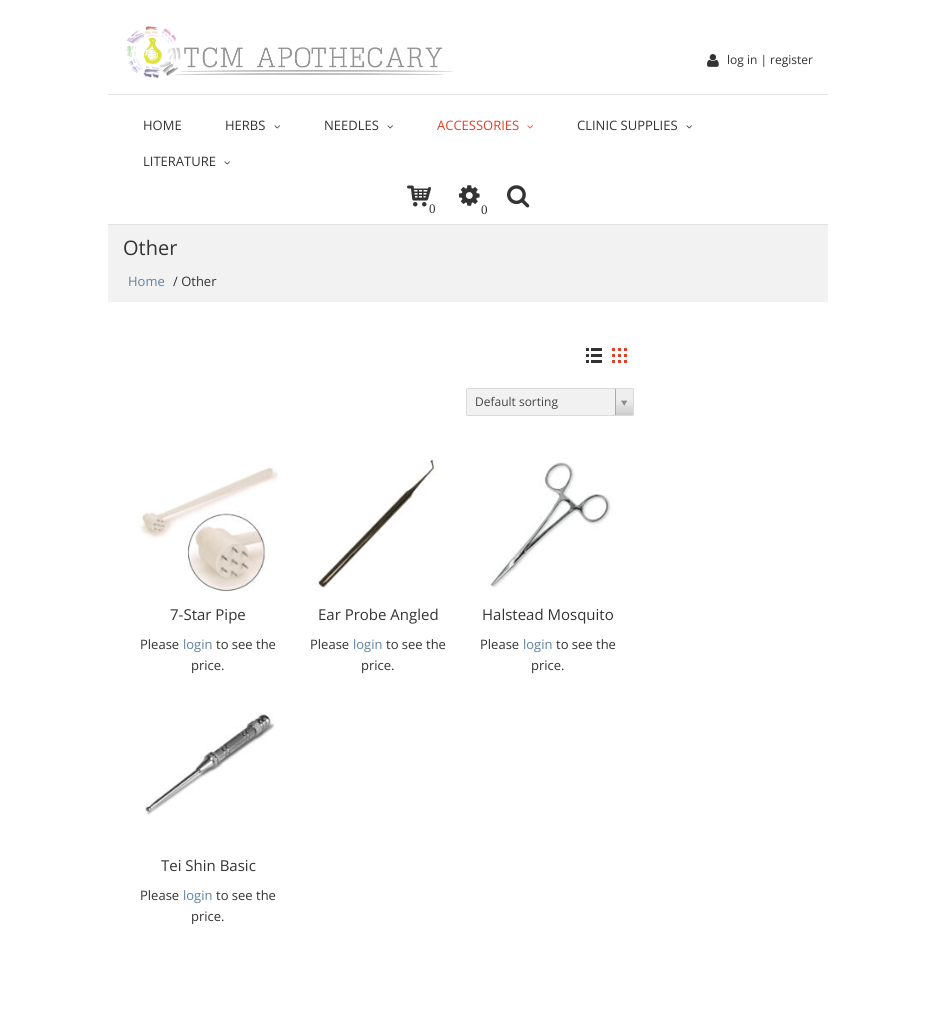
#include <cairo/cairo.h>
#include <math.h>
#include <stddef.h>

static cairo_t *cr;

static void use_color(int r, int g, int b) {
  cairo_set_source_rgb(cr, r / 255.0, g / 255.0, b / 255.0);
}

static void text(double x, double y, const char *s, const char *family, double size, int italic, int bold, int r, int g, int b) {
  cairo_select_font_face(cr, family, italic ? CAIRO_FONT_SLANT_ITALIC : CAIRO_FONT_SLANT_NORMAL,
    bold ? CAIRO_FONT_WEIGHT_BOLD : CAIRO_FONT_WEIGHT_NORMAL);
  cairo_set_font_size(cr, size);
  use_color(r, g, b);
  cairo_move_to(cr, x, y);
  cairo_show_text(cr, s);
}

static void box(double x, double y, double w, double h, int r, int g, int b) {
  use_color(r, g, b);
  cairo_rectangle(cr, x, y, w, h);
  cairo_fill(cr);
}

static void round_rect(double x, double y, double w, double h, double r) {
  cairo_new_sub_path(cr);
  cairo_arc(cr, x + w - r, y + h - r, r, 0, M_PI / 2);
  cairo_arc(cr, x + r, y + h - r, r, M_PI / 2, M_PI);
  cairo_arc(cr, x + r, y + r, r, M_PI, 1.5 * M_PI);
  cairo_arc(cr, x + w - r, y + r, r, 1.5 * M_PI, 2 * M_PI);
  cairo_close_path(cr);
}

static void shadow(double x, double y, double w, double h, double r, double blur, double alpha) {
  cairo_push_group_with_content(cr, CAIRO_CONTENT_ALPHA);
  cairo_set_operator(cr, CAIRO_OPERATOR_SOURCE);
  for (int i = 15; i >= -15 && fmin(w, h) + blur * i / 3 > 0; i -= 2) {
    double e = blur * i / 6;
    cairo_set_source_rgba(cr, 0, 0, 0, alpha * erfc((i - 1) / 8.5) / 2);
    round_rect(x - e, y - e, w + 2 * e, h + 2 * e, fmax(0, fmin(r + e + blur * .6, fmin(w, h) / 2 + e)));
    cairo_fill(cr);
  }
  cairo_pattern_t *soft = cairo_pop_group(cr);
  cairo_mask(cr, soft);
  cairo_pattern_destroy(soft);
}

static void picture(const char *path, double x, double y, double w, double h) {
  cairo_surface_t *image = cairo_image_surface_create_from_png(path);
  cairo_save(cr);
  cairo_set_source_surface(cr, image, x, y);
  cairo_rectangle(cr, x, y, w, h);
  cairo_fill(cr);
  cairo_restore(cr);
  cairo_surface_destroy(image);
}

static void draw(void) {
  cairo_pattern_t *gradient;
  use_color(255, 255, 255);
  cairo_paint(cr);
  picture("img_01.png", 125, 26, 328, 52);
  picture("img_02.png", 707, 54, 12, 13);
  box(108, 94, 720, 1, 226, 226, 226);
  box(108, 224, 720, 1, 226, 226, 226);
  picture("img_03.png", 274, 125, 6, 4);
  picture("img_03.png", 387, 125, 6, 4);
  picture("img_04.png", 527, 125, 6, 4);
  picture("img_03.png", 686, 125, 6, 4);
  picture("img_03.png", 224, 161, 6, 4);
  picture("img_05.png", 507, 185, 23, 23);
  picture("img_06.png", 407, 185, 24, 22);
  picture("img_07.png", 459, 185, 21, 21);
  box(108, 225, 720, 77, 242, 242, 242);
  picture("img_08.png", 586, 348, 16, 15);
  picture("img_09.png", 612, 348, 15, 15);
  use_color(0, 0, 0);
  shadow(467, 389, 166, 26, 0, 0.5, 0.6);
  box(467, 389, 148, 26, 241, 241, 241);
  gradient = cairo_pattern_create_linear(625, 415, 625, 389);
  cairo_pattern_add_color_stop_rgba(gradient, 0, 0.8, 0.8, 0.8, 1);
  cairo_pattern_add_color_stop_rgba(gradient, 0.6, 0.933, 0.933, 0.933, 1);
  cairo_set_source(cr, gradient);
  cairo_pattern_destroy(gradient);
  cairo_rectangle(cr, 616, 389, 17, 26);
  cairo_fill(cr);
  box(615, 389, 1, 26, 170, 170, 170);
  picture("img_10.png", 621, 400, 7, 6);
  picture("img_11.png", 138, 465, 140, 127);
  picture("img_12.png", 315, 455, 122, 136);
  picture("img_13.png", 488, 462, 125, 129);
  picture("img_14.png", 145, 713, 130, 102);
  text(727, 64, "log in | register", "Open Sans", 12, 0, 0, 51, 51, 51);
  text(143, 130, "HOME", "Open Sans", 13, 0, 0, 51, 51, 51);
  text(225, 130, "HERBS", "Open Sans", 13, 0, 0, 51, 51, 51);
  text(324, 130, "NEEDLES", "Open Sans", 13, 0, 0, 51, 51, 51);
  text(437, 130, "ACCESSORIES", "Open Sans", 13, 0, 0, 222, 65, 39);
  text(577, 130, "CLINIC SUPPLIES", "Open Sans", 13, 0, 0, 51, 51, 51);
  text(143, 166, "LITERATURE", "Open Sans", 13, 0, 0, 51, 51, 51);
  text(429, 213, "0", "Liberation Serif", 13, 0, 0, 51, 51, 51);
  text(481, 214, "0", "Liberation Serif", 13, 0, 0, 51, 51, 51);
  text(123, 255, "Other", "Open Sans", 20, 0, 0, 51, 51, 51);
  text(128, 286, "Home", "Open Sans", 13, 0, 0, 97, 130, 161);
  text(173, 286, "/ Other", "Open Sans", 13, 0, 0, 51, 51, 51);
  text(475, 406, "Default sorting", "Open Sans", 12, 0, 0, 68, 68, 68);
  text(170, 620, "7-Star Pipe", "Open Sans", 15, 0, 0, 51, 51, 51);
  text(140, 649, "Please", "Open Sans", 13, 0, 0, 51, 51, 51);
  text(183, 649, "login", "Open Sans", 13, 0, 0, 97, 130, 161);
  text(216, 649, "to see the", "Open Sans", 13, 0, 0, 51, 51, 51);
  text(191, 670, "price.", "Open Sans", 13, 0, 0, 51, 51, 51);
  text(318, 620, "Ear Probe Angled", "Open Sans", 15, 0, 0, 51, 51, 51);
  text(310, 649, "Please", "Open Sans", 13, 0, 0, 51, 51, 51);
  text(353, 649, "login", "Open Sans", 13, 0, 0, 97, 130, 161);
  text(386, 649, "to see the", "Open Sans", 13, 0, 0, 51, 51, 51);
  text(361, 670, "price.", "Open Sans", 13, 0, 0, 51, 51, 51);
  text(482, 620, "Halstead Mosquito", "Open Sans", 15, 0, 0, 51, 51, 51);
  text(480, 649, "Please", "Open Sans", 13, 0, 0, 51, 51, 51);
  text(523, 649, "login", "Open Sans", 13, 0, 0, 97, 130, 161);
  text(556, 649, "to see the", "Open Sans", 13, 0, 0, 51, 51, 51);
  text(531, 670, "price.", "Open Sans", 13, 0, 0, 51, 51, 51);
  text(161, 871, "Tei Shin Basic", "Open Sans", 15, 0, 0, 51, 51, 51);
  text(140, 900, "Please", "Open Sans", 13, 0, 0, 51, 51, 51);
  text(183, 900, "login", "Open Sans", 13, 0, 0, 97, 130, 161);
  text(216, 900, "to see the", "Open Sans", 13, 0, 0, 51, 51, 51);
  text(191, 921, "price.", "Open Sans", 13, 0, 0, 51, 51, 51);
}

int main(void) {
  cairo_surface_t *surface = cairo_image_surface_create(CAIRO_FORMAT_RGB24, 936, 1013);
  cr = cairo_create(surface);
  cairo_font_options_t *options = cairo_font_options_create();
  cairo_font_options_set_hint_metrics(options, CAIRO_HINT_METRICS_OFF);
  cairo_font_options_set_hint_style(options, CAIRO_HINT_STYLE_NONE);
  cairo_set_font_options(cr, options);
  cairo_set_miter_limit(cr, 4);
  draw();
  cairo_surface_write_to_png(surface, "out.png");
  cairo_font_options_destroy(options);
  cairo_destroy(cr);
  cairo_surface_destroy(surface);
  return 0;
}
